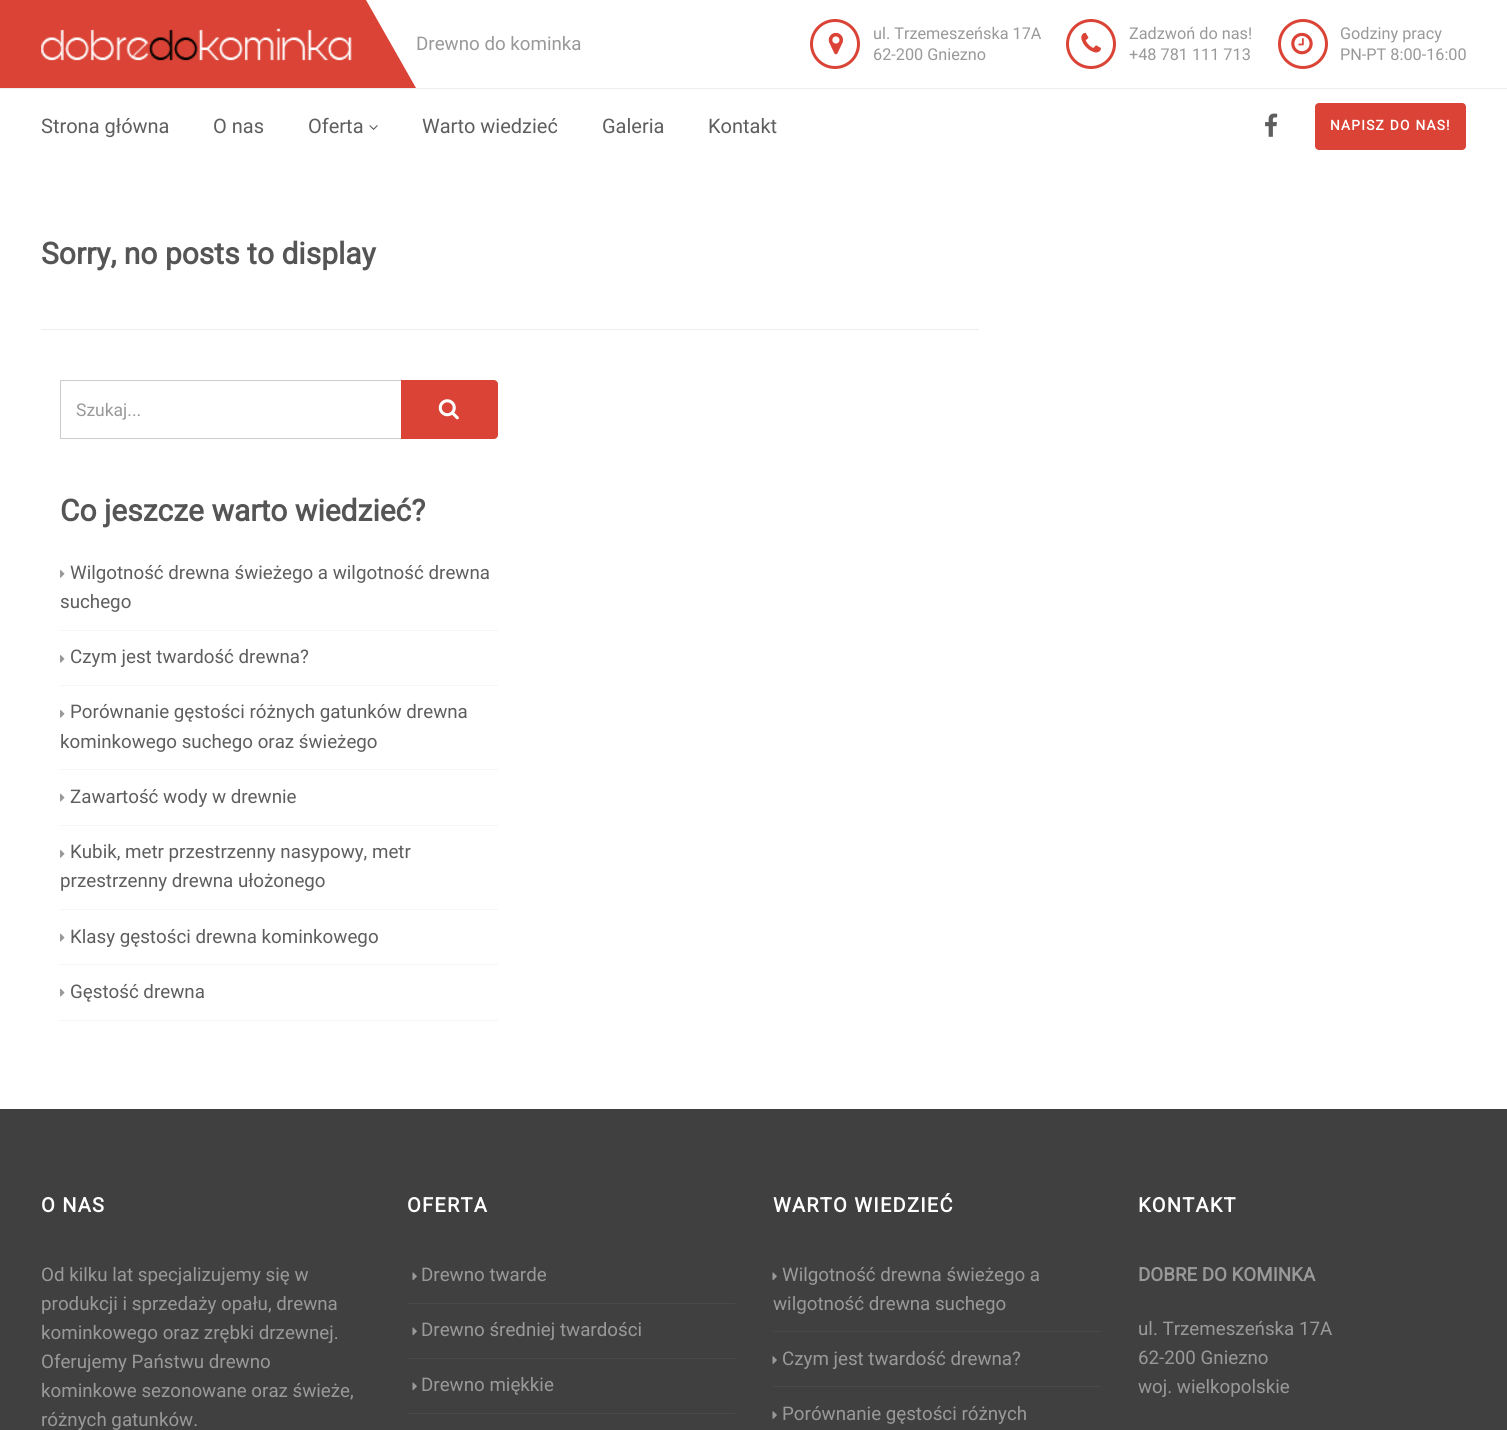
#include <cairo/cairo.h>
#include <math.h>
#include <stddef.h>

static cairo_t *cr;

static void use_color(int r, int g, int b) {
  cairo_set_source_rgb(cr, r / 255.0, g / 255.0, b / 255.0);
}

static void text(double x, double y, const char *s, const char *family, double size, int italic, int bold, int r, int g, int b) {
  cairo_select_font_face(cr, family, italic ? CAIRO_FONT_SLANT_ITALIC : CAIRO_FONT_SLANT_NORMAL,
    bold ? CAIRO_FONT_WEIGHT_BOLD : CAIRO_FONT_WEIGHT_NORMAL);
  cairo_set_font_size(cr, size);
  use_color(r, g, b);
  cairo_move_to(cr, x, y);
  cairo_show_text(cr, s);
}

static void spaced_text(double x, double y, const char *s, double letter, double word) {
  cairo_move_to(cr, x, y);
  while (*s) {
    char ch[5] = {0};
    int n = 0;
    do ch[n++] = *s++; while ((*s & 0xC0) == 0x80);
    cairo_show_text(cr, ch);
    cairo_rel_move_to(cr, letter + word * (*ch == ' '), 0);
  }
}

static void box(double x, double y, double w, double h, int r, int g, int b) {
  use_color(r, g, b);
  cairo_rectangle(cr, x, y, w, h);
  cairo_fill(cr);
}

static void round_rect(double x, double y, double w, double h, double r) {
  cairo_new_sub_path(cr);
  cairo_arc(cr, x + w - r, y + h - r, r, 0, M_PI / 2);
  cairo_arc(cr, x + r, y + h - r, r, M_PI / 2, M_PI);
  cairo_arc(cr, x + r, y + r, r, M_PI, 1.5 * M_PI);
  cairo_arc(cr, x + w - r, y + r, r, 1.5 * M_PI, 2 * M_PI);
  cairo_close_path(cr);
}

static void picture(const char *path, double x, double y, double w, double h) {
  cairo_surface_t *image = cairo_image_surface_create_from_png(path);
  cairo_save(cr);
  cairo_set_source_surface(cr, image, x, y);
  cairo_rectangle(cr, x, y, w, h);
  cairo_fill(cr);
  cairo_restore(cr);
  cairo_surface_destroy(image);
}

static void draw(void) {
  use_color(255, 255, 255);
  cairo_paint(cr);
  box(0, 0, 416, 88, 218, 67, 54);
  picture("img_01.png", 41, 28, 311, 33);
  use_color(255, 255, 255);
  cairo_new_path(cr);
  cairo_move_to(cr, 416, 0);
  cairo_line_to(cr, 416, 88);
  cairo_line_to(cr, 366, 0);
  cairo_close_path(cr);
  cairo_fill(cr);
  cairo_arc(cr, 835, 44, 23.5, 0, 2 * M_PI);
  use_color(218, 67, 54);
  cairo_set_line_width(cr, 3);
  cairo_stroke(cr);
  picture("img_02.png", 828, 32, 15, 23);
  cairo_arc(cr, 1091, 44, 23.5, 0, 2 * M_PI);
  cairo_stroke(cr);
  picture("img_03.png", 1081, 32, 20, 21);
  cairo_arc(cr, 1303, 44, 23.5, 0, 2 * M_PI);
  cairo_stroke(cr);
  picture("img_04.png", 1291, 32, 22, 23);
  box(0, 88, 1507, 1, 238, 238, 238);
  picture("img_05.png", 369, 125, 9, 5);
  picture("img_06.png", 1265, 113, 13, 24);
  use_color(218, 67, 54);
  round_rect(1315, 103, 151, 47, 4);
  cairo_fill(cr);
  box(41, 329, 938, 1, 238, 238, 238);
  cairo_rectangle(cr, 60.5, 380.5, 342, 58);
  use_color(204, 204, 204);
  cairo_set_line_width(cr, 1);
  cairo_stroke(cr);
  use_color(218, 67, 54);
  cairo_new_path(cr);
  cairo_move_to(cr, 401, 380);
  cairo_line_to(cr, 494, 380);
  cairo_curve_to(cr, 496, 380, 498, 382, 498, 384);
  cairo_line_to(cr, 498, 435);
  cairo_curve_to(cr, 498, 437, 496, 439, 494, 439);
  cairo_line_to(cr, 401, 439);
  cairo_close_path(cr);
  cairo_fill(cr);
  picture("img_07.png", 438, 399, 21, 21);
  box(60, 630, 438, 1, 246, 246, 246);
  picture("img_08.png", 60, 570, 5, 8);
  box(60, 685, 438, 1, 246, 246, 246);
  picture("img_08.png", 60, 655, 5, 8);
  box(60, 769, 438, 1, 246, 246, 246);
  picture("img_08.png", 60, 710, 5, 8);
  box(60, 825, 438, 1, 246, 246, 246);
  picture("img_09.png", 60, 793, 5, 9);
  box(60, 909, 438, 1, 246, 246, 246);
  picture("img_08.png", 60, 850, 5, 8);
  box(60, 964, 438, 1, 246, 246, 246);
  picture("img_09.png", 60, 933, 5, 9);
  box(60, 1020, 438, 1, 246, 246, 246);
  picture("img_09.png", 60, 988, 5, 9);
  box(0, 1109, 1507, 321, 64, 64, 64);
  box(408, 1303, 327, 1, 74, 74, 74);
  picture("img_10.png", 412, 1272, 5, 9);
  box(408, 1358, 327, 1, 74, 74, 74);
  picture("img_10.png", 412, 1327, 5, 9);
  box(408, 1413, 327, 1, 74, 74, 74);
  picture("img_10.png", 412, 1382, 5, 9);
  box(773, 1331, 328, 1, 74, 74, 74);
  picture("img_10.png", 772, 1272, 5, 9);
  box(773, 1386, 328, 1, 74, 74, 74);
  picture("img_11.png", 772, 1356, 5, 8);
  picture("img_11.png", 772, 1411, 5, 8);
  text(416, 50, "Drewno do kominka", "Roboto", 18.75, 0, 0, 153, 153, 153);
  text(873, 39, "ul. Trzemeszeńska 17A", "Roboto", 16.25, 0, 0, 153, 153, 153);
  text(873, 60, "62-200 Gniezno", "Roboto", 16.25, 0, 0, 153, 153, 153);
  text(1129, 39, "Zadzwoń do nas!", "Roboto", 16.25, 0, 0, 153, 153, 153);
  text(1129, 60, "+48 781 111 713", "Roboto", 16.25, 0, 0, 153, 153, 153);
  text(1340, 39, "Godziny pracy", "Roboto", 16.25, 0, 0, 153, 153, 153);
  text(1340, 60, "PN-PT 8:00-16:00", "Roboto", 16.25, 0, 0, 153, 153, 153);
  text(41, 133, "Strona główna", "Roboto", 20, 0, 0, 94, 94, 94);
  text(213, 133, "O nas", "Roboto", 20, 0, 0, 94, 94, 94);
  text(308, 133, "Oferta", "Roboto", 20, 0, 0, 94, 94, 94);
  text(422, 133, "Warto wiedzieć", "Roboto", 20, 0, 0, 94, 94, 94);
  text(602, 133, "Galeria", "Roboto", 20, 0, 0, 94, 94, 94);
  text(708, 133, "Kontakt", "Roboto", 20, 0, 0, 94, 94, 94);
  cairo_select_font_face(cr, "Roboto", CAIRO_FONT_SLANT_NORMAL, CAIRO_FONT_WEIGHT_BOLD);
  cairo_set_font_size(cr, 13.75);
  use_color(255, 255, 255);
  spaced_text(1330, 130, "NAPISZ DO NAS!", 1.25, 0);
  text(41, 264, "Sorry, no posts to display", "Roboto", 30, 0, 1, 85, 85, 85);
  text(76, 416, "Szukaj...", "Roboto", 17.5, 0, 0, 153, 153, 153);
  text(60, 521, "Co jeszcze warto wiedzieć?", "Roboto", 30, 0, 1, 85, 85, 85);
  text(70, 579, "Wilgotność drewna świeżego a wilgotność drewna", "Roboto", 18.75, 0, 0, 94, 94, 94);
  text(60, 608, "suchego", "Roboto", 18.75, 0, 0, 94, 94, 94);
  text(70, 663, "Czym jest twardość drewna?", "Roboto", 18.75, 0, 0, 94, 94, 94);
  text(70, 718, "Porównanie gęstości różnych gatunków drewna", "Roboto", 18.75, 0, 0, 94, 94, 94);
  text(60, 748, "kominkowego suchego oraz świeżego", "Roboto", 18.75, 0, 0, 94, 94, 94);
  text(70, 803, "Zawartość wody w drewnie", "Roboto", 18.75, 0, 0, 94, 94, 94);
  text(70, 858, "Kubik, metr przestrzenny nasypowy, metr", "Roboto", 18.75, 0, 0, 94, 94, 94);
  text(60, 887, "przestrzenny drewna ułożonego", "Roboto", 18.75, 0, 0, 94, 94, 94);
  text(70, 943, "Klasy gęstości drewna kominkowego", "Roboto", 18.75, 0, 0, 94, 94, 94);
  text(70, 998, "Gęstość drewna", "Roboto", 18.75, 0, 0, 94, 94, 94);
  cairo_select_font_face(cr, "Roboto", CAIRO_FONT_SLANT_NORMAL, CAIRO_FONT_WEIGHT_BOLD);
  cairo_set_font_size(cr, 20);
  use_color(255, 255, 255);
  spaced_text(41, 1212, "O NAS", 1.25, 0);
  text(41, 1281, "Od kilku lat specjalizujemy się w", "Roboto", 18.75, 0, 0, 153, 153, 153);
  text(41, 1310, "produkcji i sprzedaży opału, drewna", "Roboto", 18.75, 0, 0, 153, 153, 153);
  text(41, 1339, "kominkowego oraz zrębki drzewnej.", "Roboto", 18.75, 0, 0, 153, 153, 153);
  text(41, 1368, "Oferujemy Państwu drewno", "Roboto", 18.75, 0, 0, 153, 153, 153);
  text(41, 1397, "kominkowe sezonowane oraz świeże,", "Roboto", 18.75, 0, 0, 153, 153, 153);
  text(41, 1426, "różnych gatunków.", "Roboto", 18.75, 0, 0, 153, 153, 153);
  cairo_select_font_face(cr, "Roboto", CAIRO_FONT_SLANT_NORMAL, CAIRO_FONT_WEIGHT_BOLD);
  cairo_set_font_size(cr, 20);
  use_color(255, 255, 255);
  spaced_text(407, 1212, "OFERTA", 1.25, 0);
  text(421, 1281, "Drewno twarde", "Roboto", 18.75, 0, 0, 153, 153, 153);
  text(421, 1336, "Drewno średniej twardości", "Roboto", 18.75, 0, 0, 153, 153, 153);
  text(421, 1391, "Drewno miękkie", "Roboto", 18.75, 0, 0, 153, 153, 153);
  cairo_select_font_face(cr, "Roboto", CAIRO_FONT_SLANT_NORMAL, CAIRO_FONT_WEIGHT_BOLD);
  cairo_set_font_size(cr, 20);
  use_color(255, 255, 255);
  spaced_text(773, 1212, "WARTO WIEDZIEĆ", 1.25, 0);
  text(782, 1281, "Wilgotność drewna świeżego a", "Roboto", 18.75, 0, 0, 153, 153, 153);
  text(773, 1310, "wilgotność drewna suchego", "Roboto", 18.75, 0, 0, 153, 153, 153);
  text(782, 1365, "Czym jest twardość drewna?", "Roboto", 18.75, 0, 0, 153, 153, 153);
  text(782, 1420, "Porównanie gęstości różnych", "Roboto", 18.75, 0, 0, 153, 153, 153);
  cairo_select_font_face(cr, "Roboto", CAIRO_FONT_SLANT_NORMAL, CAIRO_FONT_WEIGHT_BOLD);
  cairo_set_font_size(cr, 20);
  use_color(255, 255, 255);
  spaced_text(1138, 1212, "KONTAKT", 1.25, 0);
  text(1138, 1281, "DOBRE DO KOMINKA", "Roboto", 18.75, 0, 1, 153, 153, 153);
  text(1138, 1335, "ul. Trzemeszeńska 17A", "Roboto", 18.75, 0, 0, 153, 153, 153);
  text(1138, 1364, "62-200 Gniezno", "Roboto", 18.75, 0, 0, 153, 153, 153);
  text(1138, 1393, "woj. wielkopolskie", "Roboto", 18.75, 0, 0, 153, 153, 153);
}

int main(void) {
  cairo_surface_t *surface = cairo_image_surface_create(CAIRO_FORMAT_RGB24, 1507, 1430);
  cr = cairo_create(surface);
  cairo_font_options_t *options = cairo_font_options_create();
  cairo_font_options_set_hint_metrics(options, CAIRO_HINT_METRICS_OFF);
  cairo_font_options_set_hint_style(options, CAIRO_HINT_STYLE_NONE);
  cairo_set_font_options(cr, options);
  cairo_set_miter_limit(cr, 4);
  draw();
  cairo_surface_write_to_png(surface, "out.png");
  cairo_font_options_destroy(options);
  cairo_destroy(cr);
  cairo_surface_destroy(surface);
  return 0;
}
